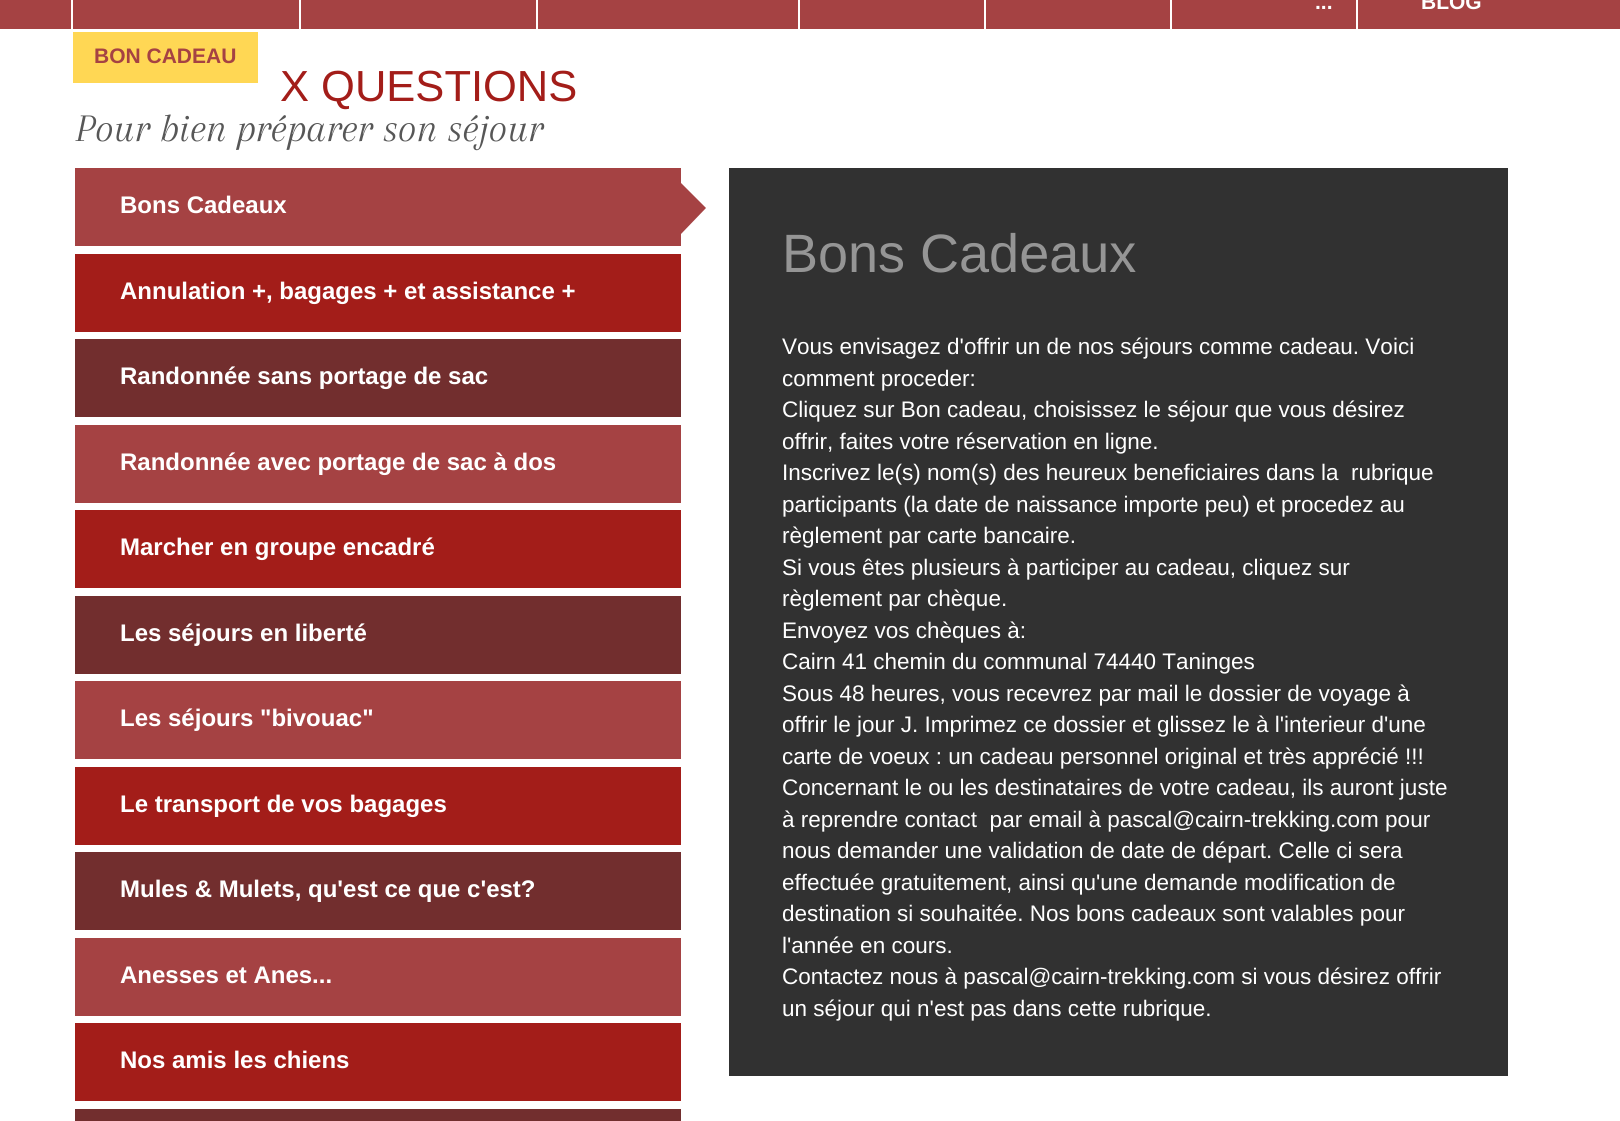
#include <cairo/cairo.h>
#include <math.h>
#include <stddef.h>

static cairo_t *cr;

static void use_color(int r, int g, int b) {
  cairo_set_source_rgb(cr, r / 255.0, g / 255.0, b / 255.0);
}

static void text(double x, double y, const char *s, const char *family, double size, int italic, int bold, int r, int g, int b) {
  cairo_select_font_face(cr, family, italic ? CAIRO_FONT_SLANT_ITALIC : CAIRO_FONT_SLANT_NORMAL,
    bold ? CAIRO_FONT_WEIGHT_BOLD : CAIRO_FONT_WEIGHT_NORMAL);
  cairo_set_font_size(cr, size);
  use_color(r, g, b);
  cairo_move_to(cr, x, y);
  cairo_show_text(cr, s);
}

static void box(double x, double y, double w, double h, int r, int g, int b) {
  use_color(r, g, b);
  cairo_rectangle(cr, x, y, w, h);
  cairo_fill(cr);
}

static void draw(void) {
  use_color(255, 255, 255);
  cairo_paint(cr);
  box(0, 0, 1620, 29, 165, 66, 67);
  box(71, 0, 2, 29, 255, 255, 255);
  box(299, 0, 2, 29, 255, 255, 255);
  box(536, 0, 2, 29, 255, 255, 255);
  box(798, 0, 2, 29, 255, 255, 255);
  box(984, 0, 2, 29, 255, 255, 255);
  box(1170, 0, 2, 29, 255, 255, 255);
  box(1356, 0, 2, 29, 255, 255, 255);
  box(73, 32, 185, 51, 255, 215, 84);
  box(75, 168, 606, 78, 165, 66, 67);
  cairo_new_path(cr);
  cairo_move_to(cr, 681, 183);
  cairo_line_to(cr, 706, 208);
  cairo_line_to(cr, 681, 234);
  cairo_line_to(cr, 656, 208);
  cairo_close_path(cr);
  cairo_fill(cr);
  box(75, 254, 606, 78, 163, 29, 25);
  box(75, 339, 606, 78, 114, 46, 46);
  box(75, 425, 606, 78, 165, 66, 67);
  box(75, 510, 606, 78, 163, 29, 25);
  box(75, 596, 606, 78, 114, 46, 46);
  box(75, 681, 606, 78, 165, 66, 67);
  box(75, 767, 606, 78, 163, 29, 25);
  box(75, 852, 606, 78, 114, 46, 46);
  box(75, 938, 606, 78, 165, 66, 67);
  box(75, 1023, 606, 78, 163, 29, 25);
  box(75, 1109, 606, 12, 114, 46, 46);
  box(729, 168, 779, 908, 49, 49, 49);
  text(1315, 9, "...", "Liberation Sans", 21, 0, 1, 255, 255, 255);
  text(1421, 9, "BLOG", "Liberation Sans", 21, 0, 1, 255, 255, 255);
  text(94, 63, "BON CADEAU", "Liberation Sans", 21, 0, 1, 165, 66, 67);
  text(280, 101, "X QUESTIONS", "Liberation Sans", 43.5, 0, 0, 163, 29, 25);
  text(75, 141, "Pour bien préparer son séjour", "Arapey", 40.5, 1, 0, 87, 87, 87);
  text(120, 213, "Bons Cadeaux", "Liberation Sans", 24, 0, 1, 255, 255, 255);
  text(120, 299, "Annulation +, bagages + et assistance +", "Liberation Sans", 24, 0, 1, 255, 255, 255);
  text(120, 384, "Randonnée sans portage de sac", "Liberation Sans", 24, 0, 1, 255, 255, 255);
  text(120, 470, "Randonnée avec portage de sac à dos", "Liberation Sans", 24, 0, 1, 255, 255, 255);
  text(120, 555, "Marcher en groupe encadré", "Liberation Sans", 24, 0, 1, 255, 255, 255);
  text(120, 641, "Les séjours en liberté", "Liberation Sans", 24, 0, 1, 255, 255, 255);
  text(120, 726, "Les séjours \"bivouac\"", "Liberation Sans", 24, 0, 1, 255, 255, 255);
  text(120, 812, "Le transport de vos bagages", "Liberation Sans", 24, 0, 1, 255, 255, 255);
  text(120, 897, "Mules & Mulets, qu'est ce que c'est?", "Liberation Sans", 24, 0, 1, 255, 255, 255);
  text(120, 983, "Anesses et Anes...", "Liberation Sans", 24, 0, 1, 255, 255, 255);
  text(120, 1068, "Nos amis les chiens", "Liberation Sans", 24, 0, 1, 255, 255, 255);
  text(782, 272, "Bons Cadeaux", "Liberation Sans", 54, 0, 0, 149, 149, 149);
  text(782, 354, "Vous envisagez d'offrir un de nos séjours comme cadeau. Voici", "Liberation Sans", 22.5, 0, 0, 255, 255, 255);
  text(782, 386, "comment proceder:", "Liberation Sans", 22.5, 0, 0, 255, 255, 255);
  text(782, 417, "Cliquez sur Bon cadeau, choisissez le séjour que vous désirez", "Liberation Sans", 22.5, 0, 0, 255, 255, 255);
  text(782, 449, "offrir, faites votre réservation en ligne.", "Liberation Sans", 22.5, 0, 0, 255, 255, 255);
  text(782, 480, "Inscrivez le(s) nom(s) des heureux beneficiaires dans la  rubrique", "Liberation Sans", 22.5, 0, 0, 255, 255, 255);
  text(782, 512, "participants (la date de naissance importe peu) et procedez au", "Liberation Sans", 22.5, 0, 0, 255, 255, 255);
  text(782, 543, "règlement par carte bancaire.", "Liberation Sans", 22.5, 0, 0, 255, 255, 255);
  text(782, 575, "Si vous êtes plusieurs à participer au cadeau, cliquez sur", "Liberation Sans", 22.5, 0, 0, 255, 255, 255);
  text(782, 606, "règlement par chèque.", "Liberation Sans", 22.5, 0, 0, 255, 255, 255);
  text(782, 638, "Envoyez vos chèques à:", "Liberation Sans", 22.5, 0, 0, 255, 255, 255);
  text(782, 669, "Cairn 41 chemin du communal 74440 Taninges", "Liberation Sans", 22.5, 0, 0, 255, 255, 255);
  text(782, 701, "Sous 48 heures, vous recevrez par mail le dossier de voyage à", "Liberation Sans", 22.5, 0, 0, 255, 255, 255);
  text(782, 732, "offrir le jour J. Imprimez ce dossier et glissez le à l'interieur d'une", "Liberation Sans", 22.5, 0, 0, 255, 255, 255);
  text(782, 764, "carte de voeux : un cadeau personnel original et très apprécié !!!", "Liberation Sans", 22.5, 0, 0, 255, 255, 255);
  text(782, 795, "Concernant le ou les destinataires de votre cadeau, ils auront juste", "Liberation Sans", 22.5, 0, 0, 255, 255, 255);
  text(782, 827, "à reprendre contact  par email à pascal@cairn-trekking.com pour", "Liberation Sans", 22.5, 0, 0, 255, 255, 255);
  text(782, 858, "nous demander une validation de date de départ. Celle ci sera", "Liberation Sans", 22.5, 0, 0, 255, 255, 255);
  text(782, 890, "effectuée gratuitement, ainsi qu'une demande modification de", "Liberation Sans", 22.5, 0, 0, 255, 255, 255);
  text(782, 921, "destination si souhaitée. Nos bons cadeaux sont valables pour", "Liberation Sans", 22.5, 0, 0, 255, 255, 255);
  text(782, 953, "l'année en cours.", "Liberation Sans", 22.5, 0, 0, 255, 255, 255);
  text(782, 984, "Contactez nous à pascal@cairn-trekking.com si vous désirez offrir", "Liberation Sans", 22.5, 0, 0, 255, 255, 255);
  text(782, 1016, "un séjour qui n'est pas dans cette rubrique.", "Liberation Sans", 22.5, 0, 0, 255, 255, 255);
}

int main(void) {
  cairo_surface_t *surface = cairo_image_surface_create(CAIRO_FORMAT_RGB24, 1620, 1121);
  cr = cairo_create(surface);
  cairo_font_options_t *options = cairo_font_options_create();
  cairo_font_options_set_hint_metrics(options, CAIRO_HINT_METRICS_OFF);
  cairo_font_options_set_hint_style(options, CAIRO_HINT_STYLE_NONE);
  cairo_set_font_options(cr, options);
  cairo_set_miter_limit(cr, 4);
  draw();
  cairo_surface_write_to_png(surface, "out.png");
  cairo_font_options_destroy(options);
  cairo_destroy(cr);
  cairo_surface_destroy(surface);
  return 0;
}
